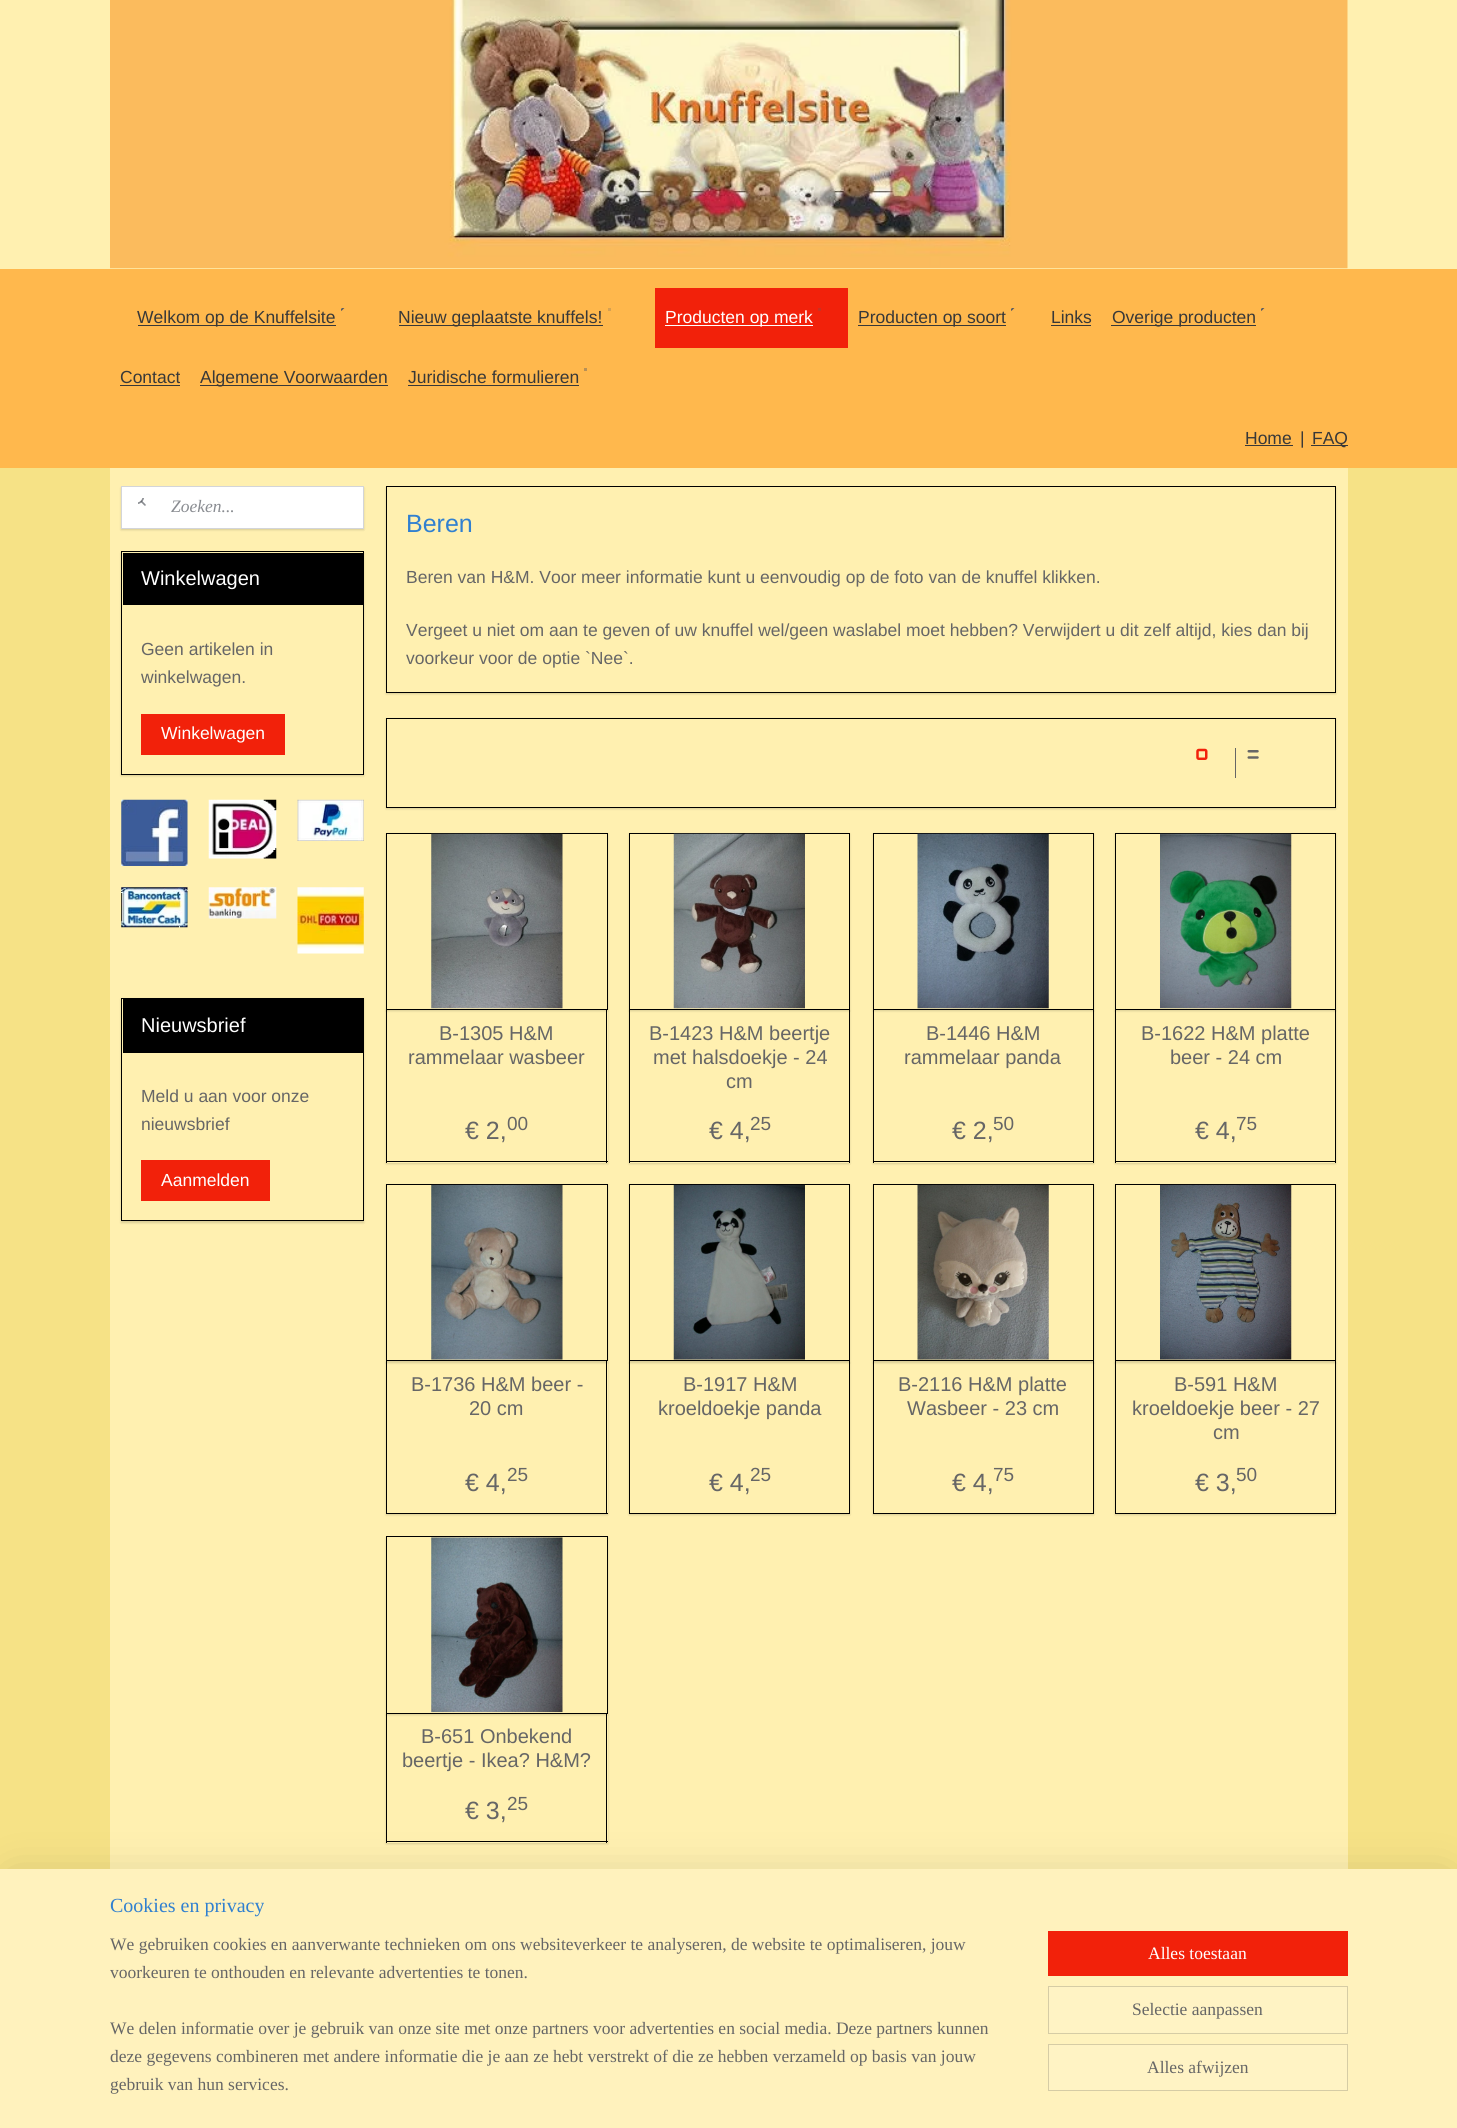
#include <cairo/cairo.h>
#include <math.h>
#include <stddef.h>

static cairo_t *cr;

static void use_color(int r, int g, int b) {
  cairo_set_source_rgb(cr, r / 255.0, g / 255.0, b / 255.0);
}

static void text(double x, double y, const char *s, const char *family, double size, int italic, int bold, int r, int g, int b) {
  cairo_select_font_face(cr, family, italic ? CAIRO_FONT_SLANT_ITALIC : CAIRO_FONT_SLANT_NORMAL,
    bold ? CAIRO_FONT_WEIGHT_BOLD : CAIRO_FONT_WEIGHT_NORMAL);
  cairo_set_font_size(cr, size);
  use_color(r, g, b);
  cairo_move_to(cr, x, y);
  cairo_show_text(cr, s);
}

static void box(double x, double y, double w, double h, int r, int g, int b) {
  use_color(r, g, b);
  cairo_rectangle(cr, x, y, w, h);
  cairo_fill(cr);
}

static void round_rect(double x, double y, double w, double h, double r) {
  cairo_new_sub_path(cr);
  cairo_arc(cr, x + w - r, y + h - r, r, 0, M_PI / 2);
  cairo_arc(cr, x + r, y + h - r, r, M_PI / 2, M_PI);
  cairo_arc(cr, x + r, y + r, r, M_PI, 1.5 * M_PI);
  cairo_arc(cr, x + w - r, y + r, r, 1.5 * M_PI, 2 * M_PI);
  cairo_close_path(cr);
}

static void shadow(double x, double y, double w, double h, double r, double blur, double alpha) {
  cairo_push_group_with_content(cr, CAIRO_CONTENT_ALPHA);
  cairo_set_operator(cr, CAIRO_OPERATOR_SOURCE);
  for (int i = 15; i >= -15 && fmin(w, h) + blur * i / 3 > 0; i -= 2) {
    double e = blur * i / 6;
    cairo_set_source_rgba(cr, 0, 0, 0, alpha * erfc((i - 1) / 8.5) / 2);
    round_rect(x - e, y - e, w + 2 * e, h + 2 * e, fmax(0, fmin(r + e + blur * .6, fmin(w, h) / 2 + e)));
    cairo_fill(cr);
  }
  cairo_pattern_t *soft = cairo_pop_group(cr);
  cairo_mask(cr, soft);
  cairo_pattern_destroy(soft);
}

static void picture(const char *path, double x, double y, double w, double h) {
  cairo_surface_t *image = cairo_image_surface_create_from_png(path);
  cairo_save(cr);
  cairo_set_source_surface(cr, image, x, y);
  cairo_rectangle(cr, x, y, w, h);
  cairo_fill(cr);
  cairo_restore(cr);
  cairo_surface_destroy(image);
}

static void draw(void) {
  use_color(246, 226, 134);
  cairo_paint(cr);
  box(0, 0, 1457, 269, 255, 240, 176);
  picture("img_01.png", 110, 0, 1238, 269);
  box(0, 269, 1457, 199, 255, 184, 77);
  picture("img_02.png", 341, 308, 4, 3);
  box(138, 325, 198, 1, 56, 56, 56);
  box(608, 308, 3, 3, 214, 161, 82);
  box(399, 325, 204, 1, 56, 56, 56);
  box(655, 288, 193, 60, 242, 33, 10);
  box(818, 308, 3, 3, 204, 48, 32);
  box(665, 325, 148, 1, 255, 255, 255);
  picture("img_02.png", 1011, 308, 4, 3);
  box(858, 325, 148, 1, 56, 56, 56);
  box(1051, 325, 40, 1, 56, 56, 56);
  picture("img_02.png", 1261, 308, 4, 3);
  box(1111, 325, 145, 1, 56, 56, 56);
  box(120, 385, 60, 1, 56, 56, 56);
  box(200, 385, 188, 1, 56, 56, 56);
  box(584, 368, 3, 3, 184, 144, 86);
  box(408, 385, 171, 1, 56, 56, 56);
  box(1245, 445, 48, 1, 56, 56, 56);
  box(1311, 445, 37, 1, 56, 56, 56);
  box(110, 468, 1238, 1401, 255, 240, 176);
  use_color(0, 0, 0);
  shadow(121, 488, 243, 42, 0, 1, 0.15);
  use_color(255, 255, 255);
  cairo_rectangle(cr, 121.5, 486.5, 242, 42);
  cairo_fill_preserve(cr);
  use_color(211, 213, 217);
  cairo_set_line_width(cr, 1);
  cairo_stroke(cr);
  picture("img_03.png", 138, 498, 8, 8);
  use_color(0, 0, 0);
  shadow(121, 553, 243, 223, 0, 1, 0.15);
  use_color(255, 240, 176);
  cairo_rectangle(cr, 121.5, 551.5, 242, 223);
  cairo_fill_preserve(cr);
  use_color(0, 0, 0);
  cairo_stroke(cr);
  box(123, 553, 240, 52, 0, 0, 0);
  box(141, 714, 144, 41, 242, 33, 10);
  picture("img_04.png", 121, 799, 67, 67);
  picture("img_05.png", 208, 799, 69, 60);
  picture("img_06.png", 297, 799, 67, 42);
  picture("img_07.png", 121, 887, 67, 41);
  picture("img_08.png", 208, 887, 69, 32);
  picture("img_09.png", 297, 887, 67, 67);
  use_color(0, 0, 0);
  shadow(121, 999, 243, 224, 0, 1, 0.15);
  use_color(255, 240, 176);
  cairo_rectangle(cr, 121.5, 998.5, 242, 222);
  cairo_fill_preserve(cr);
  use_color(0, 0, 0);
  cairo_stroke(cr);
  box(123, 999, 240, 54, 0, 0, 0);
  box(141, 1160, 129, 41, 242, 33, 10);
  cairo_save(cr);
  cairo_set_fill_rule(cr, CAIRO_FILL_RULE_EVEN_ODD);
  cairo_new_path(cr);
  cairo_move_to(cr, 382, 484);
  cairo_line_to(cr, 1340, 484);
  cairo_line_to(cr, 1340, 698);
  cairo_line_to(cr, 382, 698);
  cairo_close_path(cr);
  cairo_move_to(cr, 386, 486);
  cairo_line_to(cr, 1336, 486);
  cairo_line_to(cr, 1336, 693);
  cairo_line_to(cr, 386, 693);
  cairo_close_path(cr);
  cairo_clip(cr);
  use_color(0, 0, 0);
  shadow(386, 488, 950, 206, 0, 1, 0.15);
  cairo_restore(cr);
  cairo_rectangle(cr, 386.5, 486.5, 949, 206);
  use_color(0, 0, 0);
  cairo_stroke(cr);
  cairo_save(cr);
  cairo_set_fill_rule(cr, CAIRO_FILL_RULE_EVEN_ODD);
  cairo_new_path(cr);
  cairo_move_to(cr, 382, 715);
  cairo_line_to(cr, 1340, 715);
  cairo_line_to(cr, 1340, 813);
  cairo_line_to(cr, 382, 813);
  cairo_close_path(cr);
  cairo_move_to(cr, 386, 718);
  cairo_line_to(cr, 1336, 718);
  cairo_line_to(cr, 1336, 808);
  cairo_line_to(cr, 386, 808);
  cairo_close_path(cr);
  cairo_clip(cr);
  use_color(0, 0, 0);
  shadow(386, 719, 950, 90, 0, 1, 0.15);
  cairo_restore(cr);
  cairo_rectangle(cr, 386.5, 718.5, 949, 89);
  cairo_stroke(cr);
  picture("img_10.png", 1196, 748, 12, 12);
  box(1235, 748, 1, 30, 102, 102, 102);
  picture("img_11.png", 1247, 750, 12, 9);
  cairo_save(cr);
  cairo_set_fill_rule(cr, CAIRO_FILL_RULE_EVEN_ODD);
  cairo_new_path(cr);
  cairo_move_to(cr, 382, 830);
  cairo_line_to(cr, 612, 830);
  cairo_line_to(cr, 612, 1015);
  cairo_line_to(cr, 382, 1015);
  cairo_close_path(cr);
  cairo_move_to(cr, 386, 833);
  cairo_line_to(cr, 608, 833);
  cairo_line_to(cr, 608, 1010);
  cairo_line_to(cr, 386, 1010);
  cairo_close_path(cr);
  cairo_clip(cr);
  use_color(0, 0, 0);
  shadow(386, 834, 222, 177, 0, 1, 0.15);
  cairo_restore(cr);
  cairo_rectangle(cr, 386.5, 833.5, 221, 176);
  use_color(0, 0, 0);
  cairo_stroke(cr);
  picture("img_12.png", 431, 833, 132, 176);
  cairo_save(cr);
  cairo_set_fill_rule(cr, CAIRO_FILL_RULE_EVEN_ODD);
  cairo_new_path(cr);
  cairo_move_to(cr, 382, 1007);
  cairo_line_to(cr, 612, 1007);
  cairo_line_to(cr, 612, 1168);
  cairo_line_to(cr, 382, 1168);
  cairo_close_path(cr);
  cairo_move_to(cr, 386, 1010);
  cairo_line_to(cr, 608, 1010);
  cairo_line_to(cr, 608, 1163);
  cairo_line_to(cr, 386, 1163);
  cairo_close_path(cr);
  cairo_clip(cr);
  use_color(0, 0, 0);
  shadow(386, 1011, 222, 153, 0, 1, 0.15);
  cairo_restore(cr);
  box(606, 1010, 1, 153, 0, 0, 0);
  box(386, 1161, 222, 1, 0, 0, 0);
  box(386, 1010, 1, 153, 0, 0, 0);
  cairo_save(cr);
  cairo_set_fill_rule(cr, CAIRO_FILL_RULE_EVEN_ODD);
  cairo_new_path(cr);
  cairo_move_to(cr, 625, 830);
  cairo_line_to(cr, 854, 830);
  cairo_line_to(cr, 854, 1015);
  cairo_line_to(cr, 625, 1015);
  cairo_close_path(cr);
  cairo_move_to(cr, 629, 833);
  cairo_line_to(cr, 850, 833);
  cairo_line_to(cr, 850, 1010);
  cairo_line_to(cr, 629, 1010);
  cairo_close_path(cr);
  cairo_clip(cr);
  use_color(0, 0, 0);
  shadow(629, 834, 221, 177, 0, 1, 0.15);
  cairo_restore(cr);
  cairo_rectangle(cr, 629.5, 833.5, 220, 176);
  cairo_stroke(cr);
  picture("img_13.png", 673, 833, 132, 176);
  cairo_save(cr);
  cairo_set_fill_rule(cr, CAIRO_FILL_RULE_EVEN_ODD);
  cairo_new_path(cr);
  cairo_move_to(cr, 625, 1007);
  cairo_line_to(cr, 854, 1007);
  cairo_line_to(cr, 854, 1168);
  cairo_line_to(cr, 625, 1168);
  cairo_close_path(cr);
  cairo_move_to(cr, 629, 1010);
  cairo_line_to(cr, 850, 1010);
  cairo_line_to(cr, 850, 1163);
  cairo_line_to(cr, 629, 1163);
  cairo_close_path(cr);
  cairo_clip(cr);
  use_color(0, 0, 0);
  shadow(629, 1011, 221, 153, 0, 1, 0.15);
  cairo_restore(cr);
  box(849, 1010, 1, 153, 0, 0, 0);
  box(629, 1161, 221, 1, 0, 0, 0);
  box(629, 1010, 1, 153, 0, 0, 0);
  cairo_save(cr);
  cairo_set_fill_rule(cr, CAIRO_FILL_RULE_EVEN_ODD);
  cairo_new_path(cr);
  cairo_move_to(cr, 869, 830);
  cairo_line_to(cr, 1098, 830);
  cairo_line_to(cr, 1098, 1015);
  cairo_line_to(cr, 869, 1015);
  cairo_close_path(cr);
  cairo_move_to(cr, 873, 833);
  cairo_line_to(cr, 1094, 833);
  cairo_line_to(cr, 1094, 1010);
  cairo_line_to(cr, 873, 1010);
  cairo_close_path(cr);
  cairo_clip(cr);
  use_color(0, 0, 0);
  shadow(873, 834, 221, 177, 0, 1, 0.15);
  cairo_restore(cr);
  cairo_rectangle(cr, 873.5, 833.5, 220, 176);
  cairo_stroke(cr);
  picture("img_14.png", 917, 833, 132, 176);
  cairo_save(cr);
  cairo_set_fill_rule(cr, CAIRO_FILL_RULE_EVEN_ODD);
  cairo_new_path(cr);
  cairo_move_to(cr, 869, 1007);
  cairo_line_to(cr, 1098, 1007);
  cairo_line_to(cr, 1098, 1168);
  cairo_line_to(cr, 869, 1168);
  cairo_close_path(cr);
  cairo_move_to(cr, 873, 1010);
  cairo_line_to(cr, 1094, 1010);
  cairo_line_to(cr, 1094, 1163);
  cairo_line_to(cr, 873, 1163);
  cairo_close_path(cr);
  cairo_clip(cr);
  use_color(0, 0, 0);
  shadow(873, 1011, 221, 153, 0, 1, 0.15);
  cairo_restore(cr);
  box(1093, 1010, 1, 153, 0, 0, 0);
  box(873, 1161, 221, 1, 0, 0, 0);
  box(873, 1010, 1, 153, 0, 0, 0);
  cairo_save(cr);
  cairo_set_fill_rule(cr, CAIRO_FILL_RULE_EVEN_ODD);
  cairo_new_path(cr);
  cairo_move_to(cr, 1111, 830);
  cairo_line_to(cr, 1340, 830);
  cairo_line_to(cr, 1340, 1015);
  cairo_line_to(cr, 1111, 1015);
  cairo_close_path(cr);
  cairo_move_to(cr, 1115, 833);
  cairo_line_to(cr, 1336, 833);
  cairo_line_to(cr, 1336, 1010);
  cairo_line_to(cr, 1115, 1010);
  cairo_close_path(cr);
  cairo_clip(cr);
  use_color(0, 0, 0);
  shadow(1115, 834, 221, 177, 0, 1, 0.15);
  cairo_restore(cr);
  cairo_rectangle(cr, 1115.5, 833.5, 220, 176);
  cairo_stroke(cr);
  picture("img_15.png", 1160, 833, 132, 176);
  cairo_save(cr);
  cairo_set_fill_rule(cr, CAIRO_FILL_RULE_EVEN_ODD);
  cairo_new_path(cr);
  cairo_move_to(cr, 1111, 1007);
  cairo_line_to(cr, 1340, 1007);
  cairo_line_to(cr, 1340, 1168);
  cairo_line_to(cr, 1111, 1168);
  cairo_close_path(cr);
  cairo_move_to(cr, 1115, 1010);
  cairo_line_to(cr, 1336, 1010);
  cairo_line_to(cr, 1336, 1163);
  cairo_line_to(cr, 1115, 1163);
  cairo_close_path(cr);
  cairo_clip(cr);
  use_color(0, 0, 0);
  shadow(1115, 1011, 221, 153, 0, 1, 0.15);
  cairo_restore(cr);
  box(1335, 1010, 1, 153, 0, 0, 0);
  box(1115, 1161, 221, 1, 0, 0, 0);
  box(1115, 1010, 1, 153, 0, 0, 0);
  cairo_save(cr);
  cairo_set_fill_rule(cr, CAIRO_FILL_RULE_EVEN_ODD);
  cairo_new_path(cr);
  cairo_move_to(cr, 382, 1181);
  cairo_line_to(cr, 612, 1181);
  cairo_line_to(cr, 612, 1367);
  cairo_line_to(cr, 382, 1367);
  cairo_close_path(cr);
  cairo_move_to(cr, 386, 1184);
  cairo_line_to(cr, 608, 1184);
  cairo_line_to(cr, 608, 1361);
  cairo_line_to(cr, 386, 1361);
  cairo_close_path(cr);
  cairo_clip(cr);
  use_color(0, 0, 0);
  shadow(386, 1185, 222, 178, 0, 1, 0.15);
  cairo_restore(cr);
  cairo_rectangle(cr, 386.5, 1184.5, 221, 176);
  cairo_stroke(cr);
  picture("img_16.png", 431, 1184, 132, 176);
  cairo_save(cr);
  cairo_set_fill_rule(cr, CAIRO_FILL_RULE_EVEN_ODD);
  cairo_new_path(cr);
  cairo_move_to(cr, 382, 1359);
  cairo_line_to(cr, 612, 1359);
  cairo_line_to(cr, 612, 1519);
  cairo_line_to(cr, 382, 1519);
  cairo_close_path(cr);
  cairo_move_to(cr, 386, 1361);
  cairo_line_to(cr, 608, 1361);
  cairo_line_to(cr, 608, 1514);
  cairo_line_to(cr, 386, 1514);
  cairo_close_path(cr);
  cairo_clip(cr);
  use_color(0, 0, 0);
  shadow(386, 1363, 222, 152, 0, 1, 0.15);
  cairo_restore(cr);
  box(606, 1361, 1, 153, 0, 0, 0);
  box(386, 1513, 222, 1, 0, 0, 0);
  box(386, 1361, 1, 153, 0, 0, 0);
  cairo_save(cr);
  cairo_set_fill_rule(cr, CAIRO_FILL_RULE_EVEN_ODD);
  cairo_new_path(cr);
  cairo_move_to(cr, 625, 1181);
  cairo_line_to(cr, 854, 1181);
  cairo_line_to(cr, 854, 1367);
  cairo_line_to(cr, 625, 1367);
  cairo_close_path(cr);
  cairo_move_to(cr, 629, 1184);
  cairo_line_to(cr, 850, 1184);
  cairo_line_to(cr, 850, 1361);
  cairo_line_to(cr, 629, 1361);
  cairo_close_path(cr);
  cairo_clip(cr);
  use_color(0, 0, 0);
  shadow(629, 1185, 221, 178, 0, 1, 0.15);
  cairo_restore(cr);
  cairo_rectangle(cr, 629.5, 1184.5, 220, 176);
  cairo_stroke(cr);
  picture("img_17.png", 673, 1184, 132, 176);
  cairo_save(cr);
  cairo_set_fill_rule(cr, CAIRO_FILL_RULE_EVEN_ODD);
  cairo_new_path(cr);
  cairo_move_to(cr, 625, 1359);
  cairo_line_to(cr, 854, 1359);
  cairo_line_to(cr, 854, 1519);
  cairo_line_to(cr, 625, 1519);
  cairo_close_path(cr);
  cairo_move_to(cr, 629, 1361);
  cairo_line_to(cr, 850, 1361);
  cairo_line_to(cr, 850, 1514);
  cairo_line_to(cr, 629, 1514);
  cairo_close_path(cr);
  cairo_clip(cr);
  use_color(0, 0, 0);
  shadow(629, 1363, 221, 152, 0, 1, 0.15);
  cairo_restore(cr);
  box(849, 1361, 1, 153, 0, 0, 0);
  box(629, 1513, 221, 1, 0, 0, 0);
  box(629, 1361, 1, 153, 0, 0, 0);
  cairo_save(cr);
  cairo_set_fill_rule(cr, CAIRO_FILL_RULE_EVEN_ODD);
  cairo_new_path(cr);
  cairo_move_to(cr, 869, 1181);
  cairo_line_to(cr, 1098, 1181);
  cairo_line_to(cr, 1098, 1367);
  cairo_line_to(cr, 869, 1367);
  cairo_close_path(cr);
  cairo_move_to(cr, 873, 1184);
  cairo_line_to(cr, 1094, 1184);
  cairo_line_to(cr, 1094, 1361);
  cairo_line_to(cr, 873, 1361);
  cairo_close_path(cr);
  cairo_clip(cr);
  use_color(0, 0, 0);
  shadow(873, 1185, 221, 178, 0, 1, 0.15);
  cairo_restore(cr);
  cairo_rectangle(cr, 873.5, 1184.5, 220, 176);
  cairo_stroke(cr);
  picture("img_18.png", 917, 1184, 132, 176);
  cairo_save(cr);
  cairo_set_fill_rule(cr, CAIRO_FILL_RULE_EVEN_ODD);
  cairo_new_path(cr);
  cairo_move_to(cr, 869, 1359);
  cairo_line_to(cr, 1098, 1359);
  cairo_line_to(cr, 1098, 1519);
  cairo_line_to(cr, 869, 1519);
  cairo_close_path(cr);
  cairo_move_to(cr, 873, 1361);
  cairo_line_to(cr, 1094, 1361);
  cairo_line_to(cr, 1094, 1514);
  cairo_line_to(cr, 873, 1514);
  cairo_close_path(cr);
  cairo_clip(cr);
  use_color(0, 0, 0);
  shadow(873, 1363, 221, 152, 0, 1, 0.15);
  cairo_restore(cr);
  box(1093, 1361, 1, 153, 0, 0, 0);
  box(873, 1513, 221, 1, 0, 0, 0);
  box(873, 1361, 1, 153, 0, 0, 0);
  cairo_save(cr);
  cairo_set_fill_rule(cr, CAIRO_FILL_RULE_EVEN_ODD);
  cairo_new_path(cr);
  cairo_move_to(cr, 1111, 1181);
  cairo_line_to(cr, 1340, 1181);
  cairo_line_to(cr, 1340, 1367);
  cairo_line_to(cr, 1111, 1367);
  cairo_close_path(cr);
  cairo_move_to(cr, 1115, 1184);
  cairo_line_to(cr, 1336, 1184);
  cairo_line_to(cr, 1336, 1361);
  cairo_line_to(cr, 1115, 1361);
  cairo_close_path(cr);
  cairo_clip(cr);
  use_color(0, 0, 0);
  shadow(1115, 1185, 221, 178, 0, 1, 0.15);
  cairo_restore(cr);
  cairo_rectangle(cr, 1115.5, 1184.5, 220, 176);
  cairo_stroke(cr);
  picture("img_19.png", 1160, 1184, 132, 176);
  cairo_save(cr);
  cairo_set_fill_rule(cr, CAIRO_FILL_RULE_EVEN_ODD);
  cairo_new_path(cr);
  cairo_move_to(cr, 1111, 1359);
  cairo_line_to(cr, 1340, 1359);
  cairo_line_to(cr, 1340, 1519);
  cairo_line_to(cr, 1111, 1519);
  cairo_close_path(cr);
  cairo_move_to(cr, 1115, 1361);
  cairo_line_to(cr, 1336, 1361);
  cairo_line_to(cr, 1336, 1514);
  cairo_line_to(cr, 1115, 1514);
  cairo_close_path(cr);
  cairo_clip(cr);
  use_color(0, 0, 0);
  shadow(1115, 1363, 221, 152, 0, 1, 0.15);
  cairo_restore(cr);
  box(1335, 1361, 1, 153, 0, 0, 0);
  box(1115, 1513, 221, 1, 0, 0, 0);
  box(1115, 1361, 1, 153, 0, 0, 0);
  cairo_save(cr);
  cairo_set_fill_rule(cr, CAIRO_FILL_RULE_EVEN_ODD);
  cairo_new_path(cr);
  cairo_move_to(cr, 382, 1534);
  cairo_line_to(cr, 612, 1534);
  cairo_line_to(cr, 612, 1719);
  cairo_line_to(cr, 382, 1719);
  cairo_close_path(cr);
  cairo_move_to(cr, 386, 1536);
  cairo_line_to(cr, 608, 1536);
  cairo_line_to(cr, 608, 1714);
  cairo_line_to(cr, 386, 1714);
  cairo_close_path(cr);
  cairo_clip(cr);
  use_color(0, 0, 0);
  shadow(386, 1538, 222, 177, 0, 1, 0.15);
  cairo_restore(cr);
  cairo_rectangle(cr, 386.5, 1536.5, 221, 177);
  cairo_stroke(cr);
  picture("img_20.png", 431, 1537, 132, 176);
  cairo_save(cr);
  cairo_set_fill_rule(cr, CAIRO_FILL_RULE_EVEN_ODD);
  cairo_new_path(cr);
  cairo_move_to(cr, 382, 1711);
  cairo_line_to(cr, 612, 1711);
  cairo_line_to(cr, 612, 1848);
  cairo_line_to(cr, 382, 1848);
  cairo_close_path(cr);
  cairo_move_to(cr, 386, 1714);
  cairo_line_to(cr, 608, 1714);
  cairo_line_to(cr, 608, 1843);
  cairo_line_to(cr, 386, 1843);
  cairo_close_path(cr);
  cairo_clip(cr);
  use_color(0, 0, 0);
  shadow(386, 1715, 222, 129, 0, 1, 0.15);
  cairo_restore(cr);
  box(606, 1714, 1, 129, 0, 0, 0);
  box(386, 1841, 222, 1, 0, 0, 0);
  box(386, 1714, 1, 129, 0, 0, 0);
  use_color(0, 0, 0);
  shadow(13, 1881, 1432, 235, 0, 22.5, 0.2);
  box(0, 1869, 1457, 259, 255, 242, 189);
  box(1048, 1931, 300, 45, 242, 33, 10);
  use_color(255, 243, 196);
  cairo_rectangle(cr, 1048.5, 1986.5, 299, 47);
  cairo_fill_preserve(cr);
  use_color(214, 204, 165);
  cairo_stroke(cr);
  use_color(255, 243, 196);
  cairo_rectangle(cr, 1048.5, 2044.5, 299, 46);
  cairo_fill_preserve(cr);
  use_color(214, 204, 165);
  cairo_stroke(cr);
  text(137, 323, "Welkom op de Knuffelsite", "Liberation Sans", 17.5, 0, 0, 56, 56, 56);
  text(398, 323, "Nieuw geplaatste knuffels!", "Liberation Sans", 17.5, 0, 0, 56, 56, 56);
  text(665, 323, "Producten op merk", "Liberation Sans", 17.5, 0, 0, 255, 255, 255);
  text(858, 323, "Producten op soort", "Liberation Sans", 17.5, 0, 0, 56, 56, 56);
  text(1051, 323, "Links", "Liberation Sans", 17.5, 0, 0, 56, 56, 56);
  text(1112, 323, "Overige producten", "Liberation Sans", 17.5, 0, 0, 56, 56, 56);
  text(120, 383, "Contact", "Liberation Sans", 17.5, 0, 0, 56, 56, 56);
  text(200, 383, "Algemene Voorwaarden", "Liberation Sans", 17.5, 0, 0, 56, 56, 56);
  text(408, 383, "Juridische formulieren", "Liberation Sans", 17.5, 0, 0, 56, 56, 56);
  text(1245, 444, "Home", "Liberation Sans", 17.5, 0, 0, 56, 56, 56);
  text(1300, 444, "|", "Liberation Sans", 17.5, 0, 0, 56, 56, 56);
  text(1312, 444, "FAQ", "Liberation Sans", 17.5, 0, 0, 56, 56, 56);
  text(171, 512, "Zoeken...", "Liberation Serif", 17.5, 1, 0, 137, 140, 145);
  text(141, 585, "Winkelwagen", "Liberation Sans", 20, 0, 0, 255, 255, 255);
  text(141, 655, "Geen artikelen in", "Liberation Sans", 17.5, 0, 0, 102, 102, 102);
  text(141, 683, "winkelwagen.", "Liberation Sans", 17.5, 0, 0, 102, 102, 102);
  text(161, 739, "Winkelwagen", "Liberation Sans", 17.5, 0, 0, 255, 255, 255);
  text(141, 1032, "Nieuwsbrief", "Liberation Sans", 20, 0, 0, 255, 255, 255);
  text(141, 1102, "Meld u aan voor onze", "Liberation Sans", 17.5, 0, 0, 102, 102, 102);
  text(141, 1130, "nieuwsbrief", "Liberation Sans", 17.5, 0, 0, 102, 102, 102);
  text(161, 1186, "Aanmelden", "Liberation Sans", 17.5, 0, 0, 255, 255, 255);
  text(406, 532, "Beren", "Liberation Sans", 25, 0, 0, 48, 128, 208);
  text(406, 583, "Beren van H&M. Voor meer informatie kunt u eenvoudig op de foto van de knuffel klikken.", "Liberation Sans", 17.5, 0, 0, 102, 102, 102);
  text(406, 636, "Vergeet u niet om aan te geven of uw knuffel wel/geen waslabel moet hebben? Verwijdert u dit zelf altijd, kies dan bij", "Liberation Sans", 17.5, 0, 0, 102, 102, 102);
  text(406, 664, "voorkeur voor de optie `Nee`.", "Liberation Sans", 17.5, 0, 0, 102, 102, 102);
  text(439, 1040, "B-1305 H&M", "Liberation Sans", 20, 0, 0, 102, 102, 102);
  text(408, 1064, "rammelaar wasbeer", "Liberation Sans", 20, 0, 0, 102, 102, 102);
  text(465, 1139, "€ 2,", "Liberation Sans", 25, 0, 0, 102, 102, 102);
  text(507, 1130, "00", "Liberation Sans", 19, 0, 0, 102, 102, 102);
  text(649, 1040, "B-1423 H&M beertje", "Liberation Sans", 20, 0, 0, 102, 102, 102);
  text(653, 1064, "met halsdoekje - 24", "Liberation Sans", 20, 0, 0, 102, 102, 102);
  text(726, 1088, "cm", "Liberation Sans", 20, 0, 0, 102, 102, 102);
  text(709, 1139, "€ 4,", "Liberation Sans", 25, 0, 0, 102, 102, 102);
  text(750, 1130, "25", "Liberation Sans", 19, 0, 0, 102, 102, 102);
  text(926, 1040, "B-1446 H&M", "Liberation Sans", 20, 0, 0, 102, 102, 102);
  text(904, 1064, "rammelaar panda", "Liberation Sans", 20, 0, 0, 102, 102, 102);
  text(952, 1139, "€ 2,", "Liberation Sans", 25, 0, 0, 102, 102, 102);
  text(993, 1130, "50", "Liberation Sans", 19, 0, 0, 102, 102, 102);
  text(1141, 1040, "B-1622 H&M platte", "Liberation Sans", 20, 0, 0, 102, 102, 102);
  text(1170, 1064, "beer - 24 cm", "Liberation Sans", 20, 0, 0, 102, 102, 102);
  text(1195, 1139, "€ 4,", "Liberation Sans", 25, 0, 0, 102, 102, 102);
  text(1236, 1130, "75", "Liberation Sans", 19, 0, 0, 102, 102, 102);
  text(411, 1391, "B-1736 H&M beer -", "Liberation Sans", 20, 0, 0, 102, 102, 102);
  text(469, 1415, "20 cm", "Liberation Sans", 20, 0, 0, 102, 102, 102);
  text(465, 1491, "€ 4,", "Liberation Sans", 25, 0, 0, 102, 102, 102);
  text(507, 1481, "25", "Liberation Sans", 19, 0, 0, 102, 102, 102);
  text(683, 1391, "B-1917 H&M", "Liberation Sans", 20, 0, 0, 102, 102, 102);
  text(658, 1415, "kroeldoekje panda", "Liberation Sans", 20, 0, 0, 102, 102, 102);
  text(709, 1491, "€ 4,", "Liberation Sans", 25, 0, 0, 102, 102, 102);
  text(750, 1481, "25", "Liberation Sans", 19, 0, 0, 102, 102, 102);
  text(898, 1391, "B-2116 H&M platte", "Liberation Sans", 20, 0, 0, 102, 102, 102);
  text(907, 1415, "Wasbeer - 23 cm", "Liberation Sans", 20, 0, 0, 102, 102, 102);
  text(952, 1491, "€ 4,", "Liberation Sans", 25, 0, 0, 102, 102, 102);
  text(993, 1481, "75", "Liberation Sans", 19, 0, 0, 102, 102, 102);
  text(1174, 1391, "B-591 H&M", "Liberation Sans", 20, 0, 0, 102, 102, 102);
  text(1132, 1415, "kroeldoekje beer - 27", "Liberation Sans", 20, 0, 0, 102, 102, 102);
  text(1213, 1439, "cm", "Liberation Sans", 20, 0, 0, 102, 102, 102);
  text(1195, 1491, "€ 3,", "Liberation Sans", 25, 0, 0, 102, 102, 102);
  text(1236, 1481, "50", "Liberation Sans", 19, 0, 0, 102, 102, 102);
  text(421, 1743, "B-651 Onbekend", "Liberation Sans", 20, 0, 0, 102, 102, 102);
  text(402, 1767, "beertje - Ikea? H&M?", "Liberation Sans", 20, 0, 0, 102, 102, 102);
  text(465, 1819, "€ 3,", "Liberation Sans", 25, 0, 0, 102, 102, 102);
  text(507, 1810, "25", "Liberation Sans", 19, 0, 0, 102, 102, 102);
  text(110, 1912, "Cookies en privacy", "Liberation Serif", 20, 0, 0, 48, 128, 208);
  text(110, 1950, "We gebruiken cookies en aanverwante technieken om ons websiteverkeer te analyseren, de website te optimaliseren, jouw", "Liberation Serif", 17.5, 0, 0, 102, 102, 102);
  text(110, 1978, "voorkeuren te onthouden en relevante advertenties te tonen.", "Liberation Serif", 17.5, 0, 0, 102, 102, 102);
  text(110, 2034, "We delen informatie over je gebruik van onze site met onze partners voor advertenties en social media. Deze partners kunnen", "Liberation Serif", 17.5, 0, 0, 102, 102, 102);
  text(110, 2062, "deze gegevens combineren met andere informatie die je aan ze hebt verstrekt of die ze hebben verzameld op basis van jouw", "Liberation Serif", 17.5, 0, 0, 102, 102, 102);
  text(110, 2090, "gebruik van hun services.", "Liberation Serif", 17.5, 0, 0, 102, 102, 102);
  text(1148, 1959, "Alles toestaan", "Liberation Serif", 17.5, 0, 0, 255, 255, 255);
  text(1132, 2015, "Selectie aanpassen", "Liberation Serif", 17.5, 0, 0, 102, 102, 102);
  text(1147, 2073, "Alles afwijzen", "Liberation Serif", 17.5, 0, 0, 102, 102, 102);
}

int main(void) {
  cairo_surface_t *surface = cairo_image_surface_create(CAIRO_FORMAT_RGB24, 1457, 2128);
  cr = cairo_create(surface);
  cairo_font_options_t *options = cairo_font_options_create();
  cairo_font_options_set_hint_metrics(options, CAIRO_HINT_METRICS_OFF);
  cairo_font_options_set_hint_style(options, CAIRO_HINT_STYLE_NONE);
  cairo_set_font_options(cr, options);
  cairo_set_miter_limit(cr, 4);
  draw();
  cairo_surface_write_to_png(surface, "out.png");
  cairo_font_options_destroy(options);
  cairo_destroy(cr);
  cairo_surface_destroy(surface);
  return 0;
}
